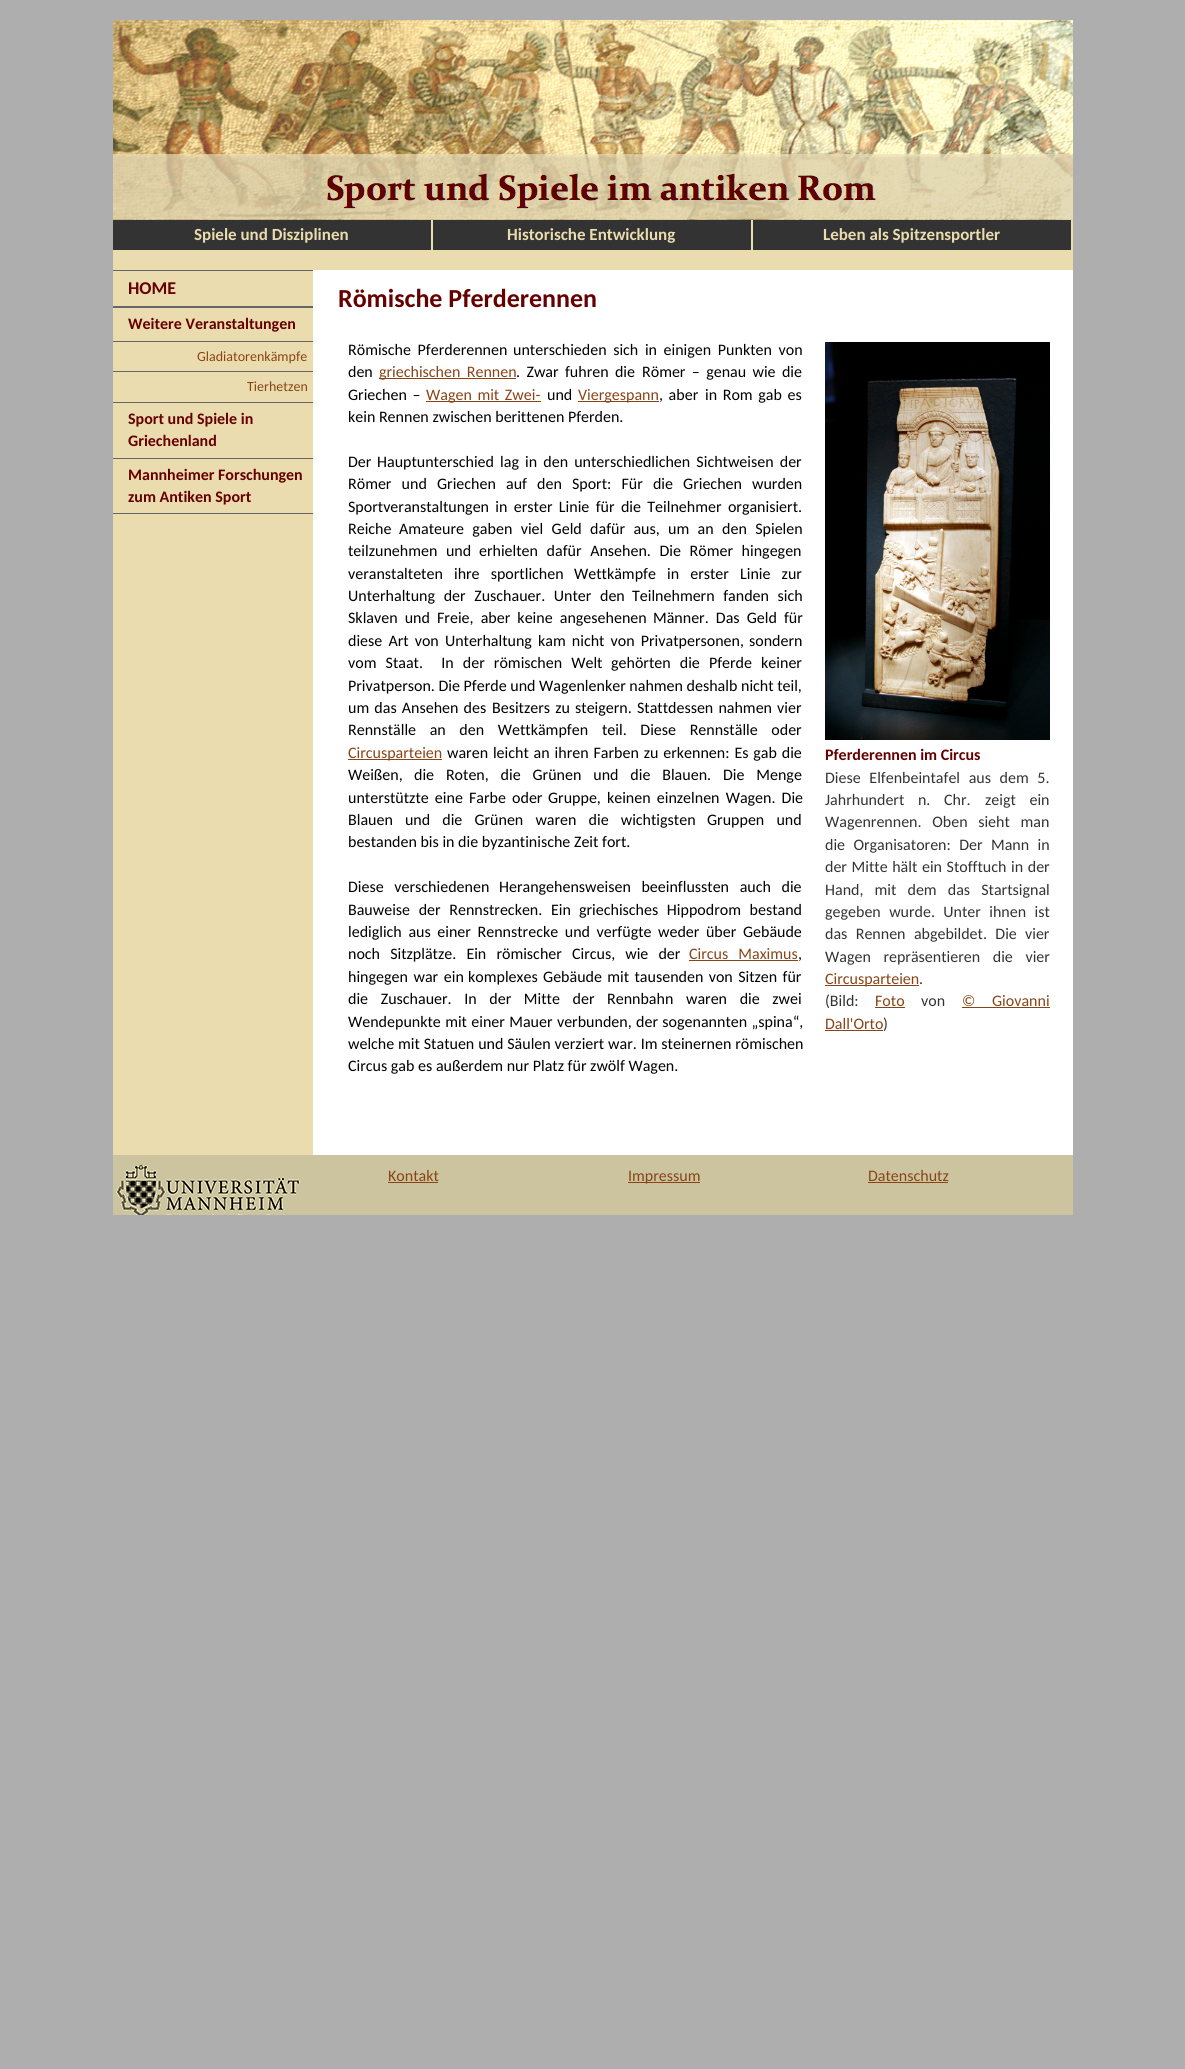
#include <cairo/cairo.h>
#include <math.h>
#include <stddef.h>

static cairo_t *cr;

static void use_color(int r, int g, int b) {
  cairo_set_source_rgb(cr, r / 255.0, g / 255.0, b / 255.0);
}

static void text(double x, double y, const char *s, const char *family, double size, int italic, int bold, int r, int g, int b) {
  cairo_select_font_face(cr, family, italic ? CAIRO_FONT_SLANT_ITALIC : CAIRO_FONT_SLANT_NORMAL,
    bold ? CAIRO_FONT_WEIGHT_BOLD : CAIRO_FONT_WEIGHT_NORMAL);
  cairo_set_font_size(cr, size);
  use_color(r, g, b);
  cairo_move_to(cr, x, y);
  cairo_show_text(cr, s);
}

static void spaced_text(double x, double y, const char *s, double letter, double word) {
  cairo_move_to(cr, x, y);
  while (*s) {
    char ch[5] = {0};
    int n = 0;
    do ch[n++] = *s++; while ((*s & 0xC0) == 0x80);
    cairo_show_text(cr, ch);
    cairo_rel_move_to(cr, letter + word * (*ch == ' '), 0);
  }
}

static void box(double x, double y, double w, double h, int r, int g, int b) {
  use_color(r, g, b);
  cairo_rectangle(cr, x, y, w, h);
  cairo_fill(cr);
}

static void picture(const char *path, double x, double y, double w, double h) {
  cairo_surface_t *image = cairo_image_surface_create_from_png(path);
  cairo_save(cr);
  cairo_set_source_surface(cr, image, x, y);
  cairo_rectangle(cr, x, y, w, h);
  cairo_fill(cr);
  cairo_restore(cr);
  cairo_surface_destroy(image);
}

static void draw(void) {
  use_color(174, 174, 174);
  cairo_paint(cr);
  box(113, 250, 960, 905, 234, 220, 174);
  picture("img_01.png", 113, 20, 960, 200);
  box(113, 220, 318, 30, 51, 51, 51);
  box(431, 220, 2, 30, 234, 220, 174);
  box(433, 220, 318, 30, 51, 51, 51);
  box(751, 220, 2, 30, 234, 220, 174);
  box(753, 220, 318, 30, 51, 51, 51);
  box(1071, 220, 2, 30, 234, 220, 174);
  box(113, 270, 200, 1, 102, 102, 102);
  box(113, 306, 200, 2, 102, 102, 102);
  box(113, 341, 200, 1, 102, 102, 102);
  box(113, 371, 200, 1, 102, 102, 102);
  box(113, 402, 200, 1, 102, 102, 102);
  box(113, 458, 200, 1, 102, 102, 102);
  box(113, 513, 200, 1, 102, 102, 102);
  box(313, 270, 760, 885, 255, 255, 255);
  box(379, 378, 137, 1, 136, 68, 23);
  box(426, 401, 115, 1, 136, 68, 23);
  box(578, 401, 81, 1, 136, 68, 23);
  box(348, 759, 94, 1, 136, 68, 23);
  box(689, 960, 109, 1, 136, 68, 23);
  picture("img_02.png", 825, 342, 225, 398);
  box(825, 985, 94, 1, 136, 68, 23);
  box(875, 1007, 30, 1, 136, 68, 23);
  box(962, 1007, 88, 1, 136, 68, 23);
  box(825, 1030, 58, 1, 136, 68, 23);
  box(113, 1155, 960, 60, 204, 196, 159);
  picture("img_03.png", 116, 1165, 184, 50);
  box(388, 1182, 50, 1, 136, 68, 23);
  box(628, 1182, 72, 1, 136, 68, 23);
  box(868, 1182, 80, 1, 136, 68, 23);
  text(194, 240, "Spiele und Disziplinen", "Carlito", 17, 0, 1, 234, 220, 174);
  text(507, 240, "Historische Entwicklung", "Carlito", 17, 0, 1, 234, 220, 174);
  text(823, 240, "Leben als Spitzensportler", "Carlito", 17, 0, 1, 234, 220, 174);
  text(128, 294, "HOME", "Carlito", 18, 0, 1, 102, 0, 0);
  text(128, 329, "Weitere Veranstaltungen", "Carlito", 16, 0, 1, 102, 0, 0);
  text(197, 361, "Gladiatorenkämpfe", "Carlito", 14, 0, 0, 136, 68, 23);
  text(247, 391, "Tierhetzen", "Carlito", 14, 0, 0, 136, 68, 23);
  text(128, 424, "Sport und Spiele in", "Carlito", 16, 0, 1, 102, 0, 0);
  text(128, 446, "Griechenland", "Carlito", 16, 0, 1, 102, 0, 0);
  text(128, 480, "Mannheimer Forschungen", "Carlito", 16, 0, 1, 102, 0, 0);
  text(128, 502, "zum Antiken Sport", "Carlito", 16, 0, 1, 102, 0, 0);
  text(338, 307, "Römische Pferderennen", "Carlito", 26, 0, 1, 102, 0, 0);
  cairo_select_font_face(cr, "Carlito", CAIRO_FONT_SLANT_NORMAL, CAIRO_FONT_WEIGHT_NORMAL);
  cairo_set_font_size(cr, 16);
  use_color(0, 0, 0);
  spaced_text(348, 355, "Römische Pferderennen", 0, 3);
  spaced_text(513, 355, "unterschieden sich in einigen Punkten von", 0, 3);
  text(348, 377, "den", "Carlito", 16, 0, 0, 0, 0, 0);
  use_color(136, 68, 23);
  spaced_text(379, 377, "griechischen Rennen", 0, 2.75);
  use_color(0, 0, 0);
  spaced_text(516, 377, ". Zwar fuhren die", 0, 2.75);
  spaced_text(642, 377, "Römer – genau wie die", 0, 2.75);
  spaced_text(348, 400, "Griechen –", 0, 2);
  use_color(136, 68, 23);
  spaced_text(426, 400, "Wagen mit Zwei-", 0, 2);
  text(547, 400, "und", "Carlito", 16, 0, 0, 0, 0, 0);
  text(578, 400, "Viergespann", "Carlito", 16, 0, 0, 136, 68, 23);
  use_color(0, 0, 0);
  spaced_text(659, 400, ", aber", 0, 2);
  spaced_text(705, 400, "in Rom gab es", 0, 2);
  text(348, 422, "kein Rennen zwischen berittenen Pferden.", "Carlito", 16, 0, 0, 0, 0, 0);
  text(348, 467, "Der", "Carlito", 16, 0, 0, 0, 0, 0);
  spaced_text(377, 467, "Hauptunterschied lag in den unterschiedlichen Sichtweisen der", 0, 2.5);
  spaced_text(348, 489, "Römer und", 0, 6.5);
  spaced_text(437, 489, "Griechen auf den Sport: Für die Griechen wurden", 0, 6.5);
  spaced_text(348, 512, "Sportveranstaltungen in erster Linie für die Teilnehmer organisiert.", 0, 2.75);
  text(348, 534, "Reiche", "Carlito", 16, 0, 0, 0, 0, 0);
  spaced_text(399, 534, "Amateure gaben viel Geld dafür aus, um an den Spielen", 0, 4.75);
  spaced_text(348, 556, "teilzunehmen und", 0, 5);
  spaced_text(479, 556, "erhielten dafür Ansehen. Die Römer hingegen", 0, 5);
  spaced_text(348, 579, "veranstalteten ihre sportlichen", 0, 7.5);
  spaced_text(574, 579, "Wettkämpfe in erster Linie zur", 0, 7.5);
  spaced_text(348, 601, "Unterhaltung der Zuschauer. Unter den", 0, 5);
  spaced_text(632, 601, "Teilnehmern fanden sich", 0, 5);
  spaced_text(348, 623, "Sklaven und Freie, aber keine angesehenen", 0, 3.5);
  spaced_text(653, 623, "Männer. Das Geld für", 0, 3.5);
  spaced_text(348, 646, "diese Art von Unterhaltung kam nicht von Privatpersonen,", 0, 2.5);
  text(749, 646, "sondern", "Carlito", 16, 0, 0, 0, 0, 0);
  spaced_text(348, 668, "vom Staat.  In der römischen Welt", 0, 5.5);
  spaced_text(611, 668, "gehörten die Pferde keiner", 0, 5.5);
  text(348, 691, "Privatperson. Die Pferde und Wagenlenker nahmen deshalb nicht teil,", "Carlito", 16, 0, 0, 0, 0, 0);
  spaced_text(348, 713, "um das Ansehen des", 0, 1.5);
  spaced_text(492, 713, "Besitzers zu steigern. Stattdessen nahmen vier", 0, 1.5);
  spaced_text(348, 735, "Rennställe an den Wettkämpfen", 0, 10);
  spaced_text(602, 735, "teil. Diese Rennställe oder", 0, 10);
  text(348, 758, "Circusparteien", "Carlito", 16, 0, 0, 136, 68, 23);
  use_color(0, 0, 0);
  spaced_text(447, 758, "waren leicht an ihren Farben zu erkennen: Es gab die", 0, 1.25);
  text(348, 780, "Weißen,", "Carlito", 16, 0, 0, 0, 0, 0);
  spaced_text(414, 780, "die Roten, die Grünen und die Blauen. Die Menge", 0, 8.25);
  spaced_text(348, 803, "unterstützte eine Farbe oder", 0, 2.5);
  spaced_text(548, 803, "Gruppe, keinen einzelnen Wagen. Die", 0, 2.5);
  spaced_text(348, 825, "Blauen und die Grünen waren die wichtigsten", 0, 8.5);
  spaced_text(707, 825, "Gruppen und", 0, 8.5);
  text(348, 847, "bestanden bis in die byzantinische Zeit fort.", "Carlito", 16, 0, 0, 0, 0, 0);
  spaced_text(348, 892, "Diese verschiedenen", 0, 7);
  spaced_text(499, 892, "Herangehensweisen beeinflussten auch die", 0, 7);
  spaced_text(348, 915, "Bauweise der Rennstrecken. Ein", 0, 5);
  spaced_text(579, 915, "griechisches Hippodrom bestand", 0, 5);
  spaced_text(348, 937, "lediglich aus einer Rennstrecke und verfügte", 0, 3);
  spaced_text(658, 937, "weder über Gebäude", 0, 3);
  spaced_text(348, 959, "noch Sitzplätze. Ein römischer Circus, wie der", 0, 6.5);
  use_color(136, 68, 23);
  spaced_text(689, 959, "Circus Maximus", 0, 6.5);
  text(798, 959, ",", "Carlito", 16, 0, 0, 0, 0, 0);
  spaced_text(348, 982, "hingegen war ein", 0, 2);
  spaced_text(468, 982, "komplexes Gebäude mit tausenden von Sitzen für", 0, 1.75);
  spaced_text(348, 1004, "die Zuschauer. In der Mitte der", 0, 9);
  spaced_text(607, 1004, "Rennbahn waren die zwei", 0, 9);
  spaced_text(348, 1027, "Wendepunkte mit einer Mauer verbunden, der sogenannten „spina“,", 0, 0.75);
  spaced_text(348, 1049, "welche mit Statuen und Säulen verziert war. Im steinernen römischen", 0, 0.25);
  text(348, 1071, "Circus gab es außerdem nur Platz für zwölf Wagen.", "Carlito", 16, 0, 0, 0, 0, 0);
  text(825, 760, "Pferderennen im Circus", "Carlito", 16, 0, 1, 102, 0, 0);
  cairo_select_font_face(cr, "Carlito", CAIRO_FONT_SLANT_NORMAL, CAIRO_FONT_WEIGHT_NORMAL);
  use_color(51, 51, 51);
  spaced_text(825, 783, "Diese Elfenbeintafel aus dem 5.", 0, 5);
  spaced_text(825, 805, "Jahrhundert n. Chr.", 0, 10);
  spaced_text(985, 805, "zeigt ein", 0, 10);
  spaced_text(825, 827, "Wagenrennen. Oben sieht man", 0, 7);
  spaced_text(825, 850, "die Organisatoren: Der", 0, 4.75);
  spaced_text(991, 850, "Mann in", 0, 4.75);
  spaced_text(825, 872, "der Mitte hält ein Stofftuch in der", 0, 1);
  spaced_text(825, 895, "Hand, mit dem das Startsignal", 0, 7.5);
  spaced_text(825, 917, "gegeben wurde. Unter ihnen ist", 0, 4.75);
  spaced_text(825, 939, "das Rennen abgebildet. Die", 0, 4.75);
  text(1025, 939, "vier", "Carlito", 16, 0, 0, 51, 51, 51);
  spaced_text(825, 962, "Wagen repräsentieren die vier", 0, 9);
  text(825, 984, "Circusparteien", "Carlito", 16, 0, 0, 136, 68, 23);
  text(919, 984, ".", "Carlito", 16, 0, 0, 51, 51, 51);
  text(825, 1006, "(Bild:", "Carlito", 16, 0, 0, 51, 51, 51);
  text(875, 1006, "Foto", "Carlito", 16, 0, 0, 136, 68, 23);
  text(921, 1006, "von", "Carlito", 16, 0, 0, 51, 51, 51);
  use_color(136, 68, 23);
  spaced_text(962, 1006, "© Giovanni", 0, 13);
  text(825, 1029, "Dall'Orto", "Carlito", 16, 0, 0, 136, 68, 23);
  text(883, 1029, ")", "Carlito", 16, 0, 0, 51, 51, 51);
  text(388, 1181, "Kontakt", "Carlito", 16, 0, 0, 136, 68, 23);
  text(628, 1181, "Impressum", "Carlito", 16, 0, 0, 136, 68, 23);
  text(868, 1181, "Datenschutz", "Carlito", 16, 0, 0, 136, 68, 23);
}

int main(void) {
  cairo_surface_t *surface = cairo_image_surface_create(CAIRO_FORMAT_RGB24, 1185, 2069);
  cr = cairo_create(surface);
  cairo_font_options_t *options = cairo_font_options_create();
  cairo_font_options_set_hint_metrics(options, CAIRO_HINT_METRICS_OFF);
  cairo_font_options_set_hint_style(options, CAIRO_HINT_STYLE_NONE);
  cairo_set_font_options(cr, options);
  cairo_set_miter_limit(cr, 4);
  draw();
  cairo_surface_write_to_png(surface, "out.png");
  cairo_font_options_destroy(options);
  cairo_destroy(cr);
  cairo_surface_destroy(surface);
  return 0;
}
